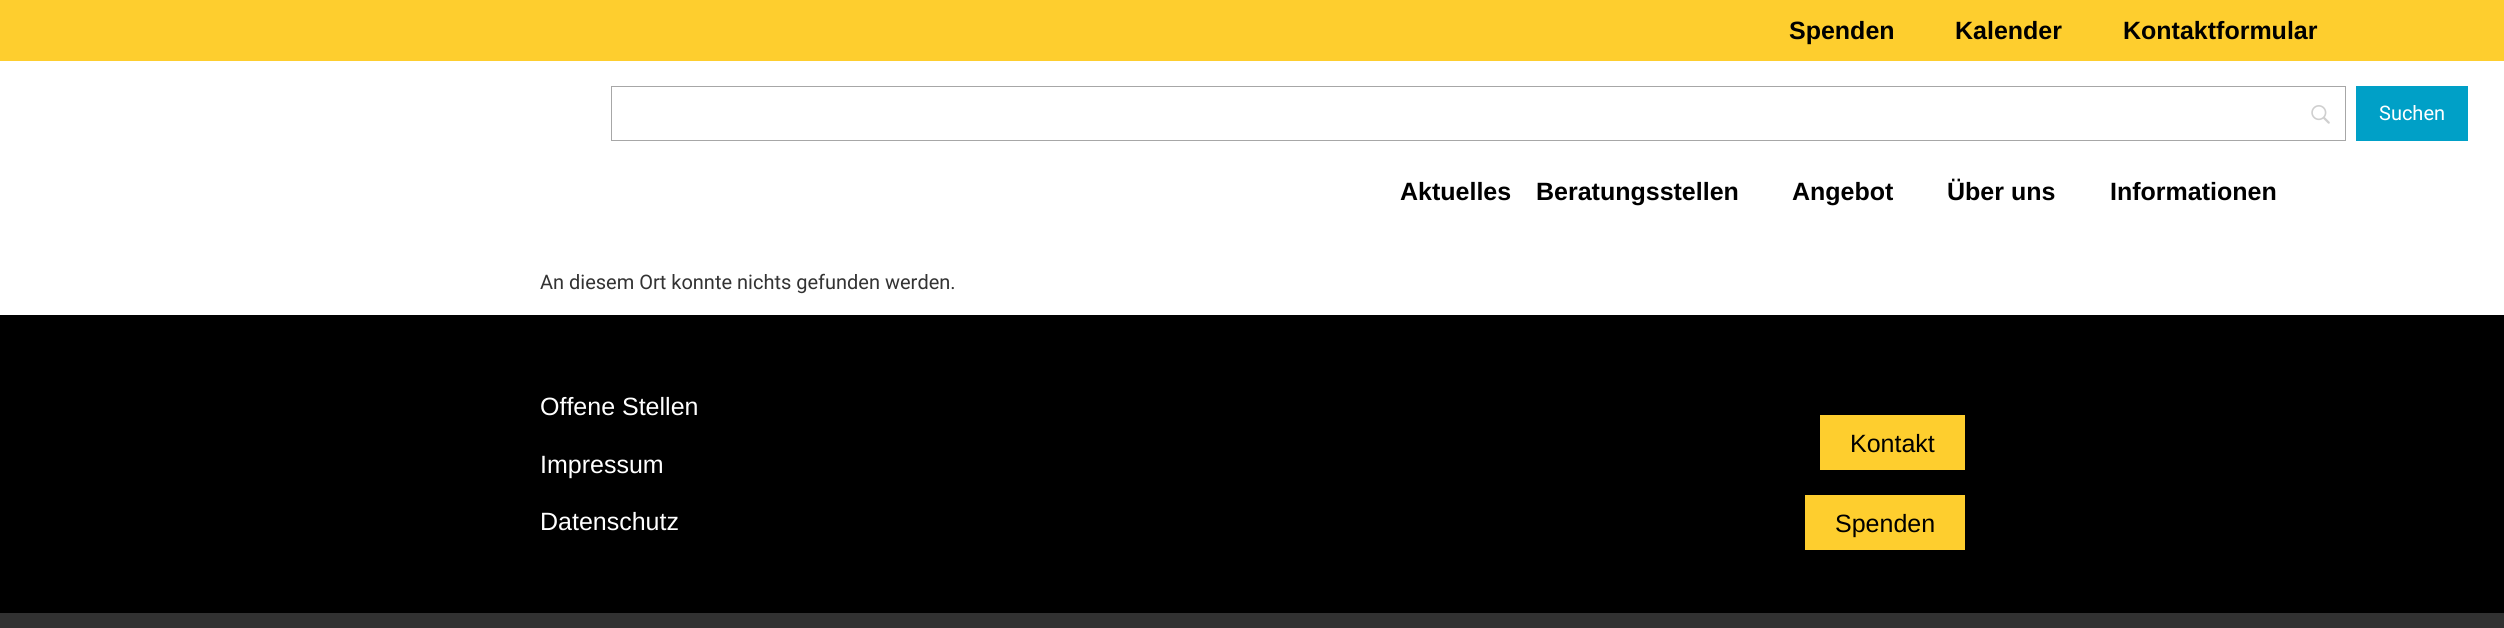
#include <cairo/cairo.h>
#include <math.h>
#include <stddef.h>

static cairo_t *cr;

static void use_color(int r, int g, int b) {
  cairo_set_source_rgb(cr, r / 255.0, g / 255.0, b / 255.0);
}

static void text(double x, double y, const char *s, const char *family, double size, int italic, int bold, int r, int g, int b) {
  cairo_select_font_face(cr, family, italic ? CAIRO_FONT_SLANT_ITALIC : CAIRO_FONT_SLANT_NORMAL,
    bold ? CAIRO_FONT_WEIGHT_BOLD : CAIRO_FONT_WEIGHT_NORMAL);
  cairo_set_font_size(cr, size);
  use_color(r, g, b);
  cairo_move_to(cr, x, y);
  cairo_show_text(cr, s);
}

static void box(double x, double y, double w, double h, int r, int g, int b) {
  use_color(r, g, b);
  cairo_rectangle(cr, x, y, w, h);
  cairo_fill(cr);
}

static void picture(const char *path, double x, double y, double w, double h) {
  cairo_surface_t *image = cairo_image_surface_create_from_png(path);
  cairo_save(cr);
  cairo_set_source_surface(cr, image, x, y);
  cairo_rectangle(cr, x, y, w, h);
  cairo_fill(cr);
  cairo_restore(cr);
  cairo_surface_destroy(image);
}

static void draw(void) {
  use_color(255, 255, 255);
  cairo_paint(cr);
  box(0, 0, 2504, 61, 254, 206, 46);
  picture("img_01.png", 2311, 105, 19, 19);
  cairo_rectangle(cr, 611.5, 86.5, 1734, 54);
  use_color(167, 167, 167);
  cairo_set_line_width(cr, 1);
  cairo_stroke(cr);
  box(2356, 86, 112, 55, 0, 160, 199);
  box(0, 315, 2504, 298, 0, 0, 0);
  box(1820, 415, 145, 55, 254, 206, 46);
  box(1805, 495, 160, 55, 254, 206, 46);
  box(0, 613, 2504, 15, 49, 49, 49);
  text(1789, 39, "Spenden", "Liberation Sans", 25, 0, 1, 0, 0, 0);
  text(1955, 39, "Kalender", "Liberation Sans", 25, 0, 1, 0, 0, 0);
  text(2123, 39, "Kontaktformular", "Liberation Sans", 25, 0, 1, 0, 0, 0);
  text(2379, 120, "Suchen", "Roboto", 20, 0, 0, 255, 255, 255);
  text(1400, 200, "Aktuelles", "Liberation Sans", 25, 0, 1, 0, 0, 0);
  text(1536, 200, "Beratungsstellen", "Liberation Sans", 25, 0, 1, 0, 0, 0);
  text(1792, 200, "Angebot", "Liberation Sans", 25, 0, 1, 0, 0, 0);
  text(1947, 200, "Über uns", "Liberation Sans", 25, 0, 1, 0, 0, 0);
  text(2110, 200, "Informationen", "Liberation Sans", 25, 0, 1, 0, 0, 0);
  text(540, 289, "An diesem Ort konnte nichts gefunden werden.", "Roboto", 20, 0, 0, 51, 51, 51);
  text(540, 415, "Offene Stellen", "Liberation Sans", 25, 0, 0, 255, 255, 255);
  text(540, 473, "Impressum", "Liberation Sans", 25, 0, 0, 255, 255, 255);
  text(540, 530, "Datenschutz", "Liberation Sans", 25, 0, 0, 255, 255, 255);
  text(1850, 452, "Kontakt", "Liberation Sans", 25, 0, 0, 0, 0, 0);
  text(1835, 532, "Spenden", "Liberation Sans", 25, 0, 0, 0, 0, 0);
}

int main(void) {
  cairo_surface_t *surface = cairo_image_surface_create(CAIRO_FORMAT_RGB24, 2504, 628);
  cr = cairo_create(surface);
  cairo_font_options_t *options = cairo_font_options_create();
  cairo_font_options_set_hint_metrics(options, CAIRO_HINT_METRICS_OFF);
  cairo_font_options_set_hint_style(options, CAIRO_HINT_STYLE_NONE);
  cairo_set_font_options(cr, options);
  cairo_set_miter_limit(cr, 4);
  draw();
  cairo_surface_write_to_png(surface, "out.png");
  cairo_font_options_destroy(options);
  cairo_destroy(cr);
  cairo_surface_destroy(surface);
  return 0;
}
